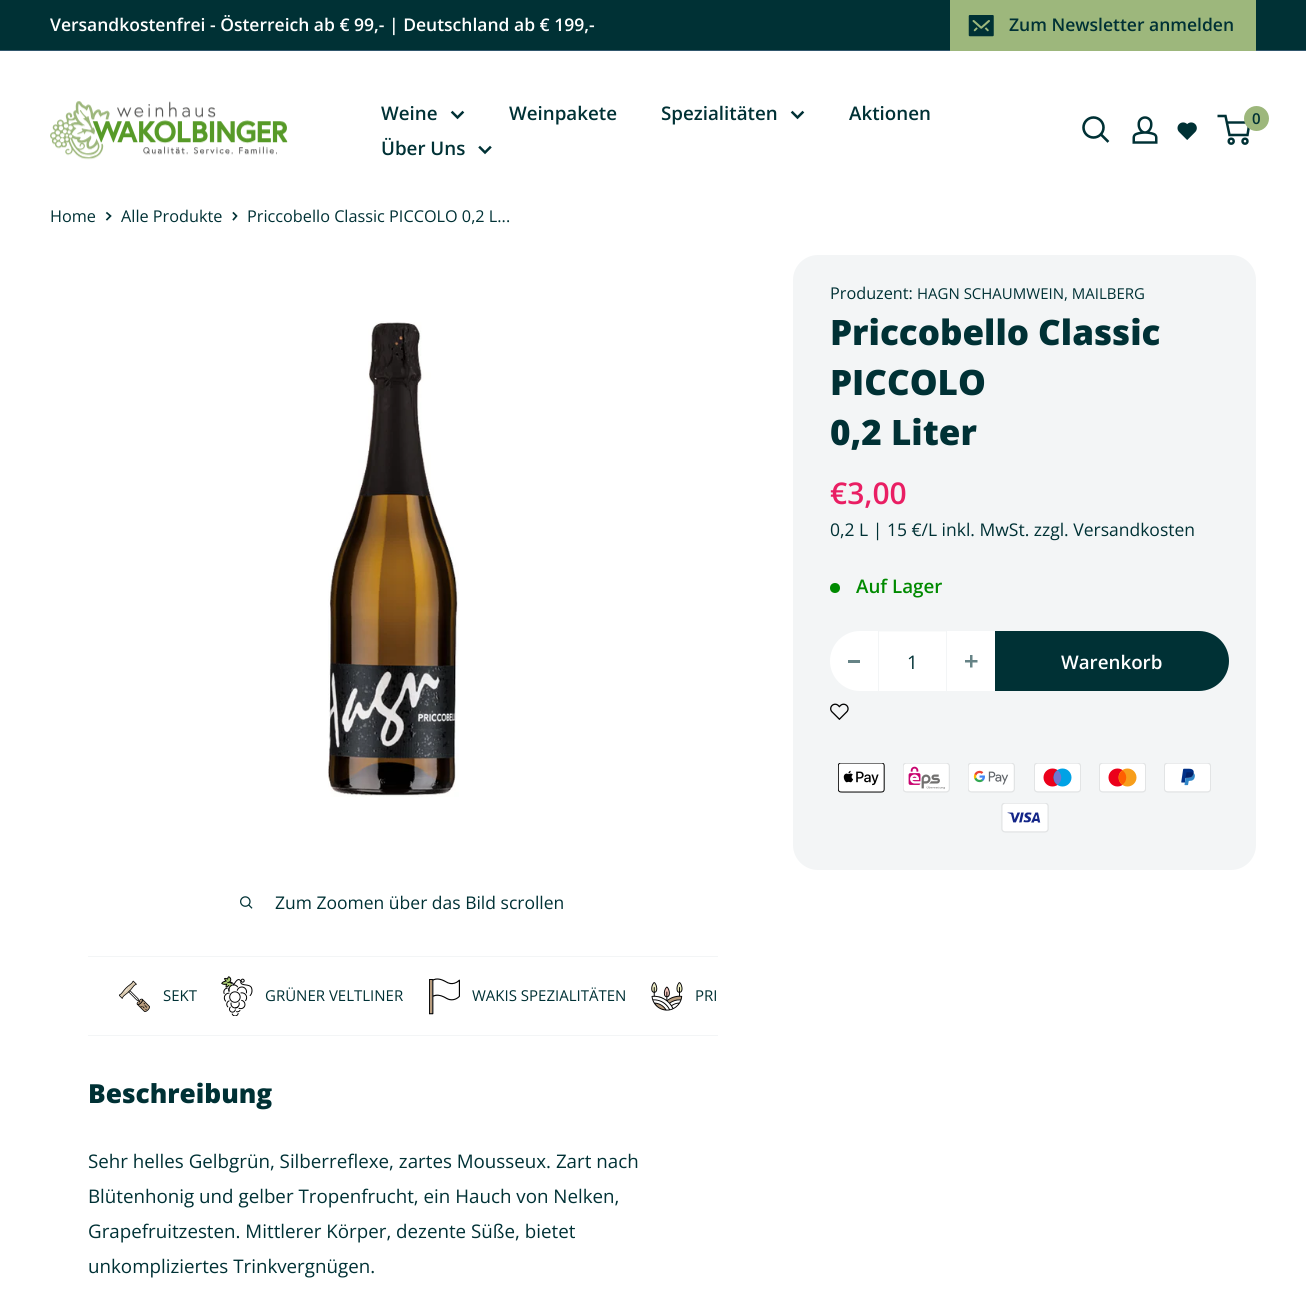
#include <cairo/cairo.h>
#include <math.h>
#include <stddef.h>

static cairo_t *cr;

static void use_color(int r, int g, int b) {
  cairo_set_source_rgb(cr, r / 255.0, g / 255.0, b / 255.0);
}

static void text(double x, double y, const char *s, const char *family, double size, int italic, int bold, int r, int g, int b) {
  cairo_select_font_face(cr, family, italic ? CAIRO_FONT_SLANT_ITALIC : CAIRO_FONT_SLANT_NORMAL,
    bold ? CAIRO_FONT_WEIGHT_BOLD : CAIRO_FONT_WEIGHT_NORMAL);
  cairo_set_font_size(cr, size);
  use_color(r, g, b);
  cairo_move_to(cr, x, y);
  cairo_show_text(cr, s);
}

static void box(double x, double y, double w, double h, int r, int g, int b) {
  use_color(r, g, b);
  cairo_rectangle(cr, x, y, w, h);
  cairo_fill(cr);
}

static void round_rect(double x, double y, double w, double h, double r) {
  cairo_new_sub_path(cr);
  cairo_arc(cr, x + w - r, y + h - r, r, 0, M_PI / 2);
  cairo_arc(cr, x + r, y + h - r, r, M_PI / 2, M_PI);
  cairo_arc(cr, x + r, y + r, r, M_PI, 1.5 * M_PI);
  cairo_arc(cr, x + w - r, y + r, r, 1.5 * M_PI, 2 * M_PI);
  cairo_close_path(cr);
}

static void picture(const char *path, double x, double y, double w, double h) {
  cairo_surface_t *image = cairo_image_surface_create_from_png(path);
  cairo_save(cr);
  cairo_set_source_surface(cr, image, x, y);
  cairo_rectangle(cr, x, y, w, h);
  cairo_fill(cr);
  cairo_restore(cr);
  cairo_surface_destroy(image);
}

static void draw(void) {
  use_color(255, 255, 255);
  cairo_paint(cr);
  box(0, 0, 1306, 50, 0, 49, 53);
  box(0, 50, 1306, 1, 49, 87, 109);
  box(950, 0, 306, 51, 157, 183, 124);
  picture("img_01.png", 968, 15, 26, 22);
  picture("img_02.png", 50, 101, 238, 59);
  cairo_new_path(cr);
  cairo_move_to(cr, 462.5, 112.5);
  cairo_line_to(cr, 457.5, 117.5);
  cairo_line_to(cr, 452.5, 112.5);
  use_color(0, 49, 53);
  cairo_set_line_width(cr, 2.5);
  cairo_set_line_cap(cr, CAIRO_LINE_CAP_SQUARE);
  cairo_stroke(cr);
  cairo_new_path(cr);
  cairo_move_to(cr, 802.5, 112.5);
  cairo_line_to(cr, 797.5, 117.5);
  cairo_line_to(cr, 792.5, 112.5);
  cairo_stroke(cr);
  cairo_new_path(cr);
  cairo_move_to(cr, 490, 147.5);
  cairo_line_to(cr, 485, 152.5);
  cairo_line_to(cr, 480, 147.5);
  cairo_stroke(cr);
  cairo_new_path(cr);
  cairo_move_to(cr, 1107.5, 141);
  cairo_line_to(cr, 1101, 134.5);
  cairo_set_line_width(cr, 2.6);
  cairo_stroke(cr);
  cairo_arc(cr, 1093.5, 127.5, 10, 0, 2 * M_PI);
  cairo_set_line_cap(cr, CAIRO_LINE_CAP_BUTT);
  cairo_stroke(cr);
  picture("img_03.png", 1132, 116, 26, 28);
  picture("img_04.png", 1177, 122, 20, 18);
  cairo_arc(cr, 1231.2, 141.2, 2.5, 0, 2 * M_PI);
  cairo_set_line_width(cr, 2.5);
  cairo_stroke(cr);
  cairo_arc(cr, 1245, 141.2, 2.5, 0, 2 * M_PI);
  cairo_stroke(cr);
  cairo_new_path(cr);
  cairo_move_to(cr, 1226.5, 122.5);
  cairo_line_to(cr, 1249.5, 122.5);
  cairo_line_to(cr, 1247.5, 135);
  cairo_line_to(cr, 1229.5, 135);
  cairo_line_to(cr, 1225.5, 116);
  cairo_line_to(cr, 1217.5, 116);
  cairo_stroke(cr);
  use_color(157, 183, 124);
  cairo_arc(cr, 1256.5, 118.5, 12.5, 0, 2 * M_PI);
  cairo_fill(cr);
  cairo_new_path(cr);
  cairo_move_to(cr, 107, 213);
  cairo_line_to(cr, 110.5, 216);
  cairo_line_to(cr, 107, 219.5);
  use_color(0, 49, 53);
  cairo_set_line_width(cr, 1.7);
  cairo_set_line_cap(cr, CAIRO_LINE_CAP_SQUARE);
  cairo_stroke(cr);
  cairo_new_path(cr);
  cairo_move_to(cr, 233.5, 213);
  cairo_line_to(cr, 236.5, 216);
  cairo_line_to(cr, 233.5, 219.5);
  cairo_stroke(cr);
  use_color(243, 245, 246);
  round_rect(793, 255, 463, 615, 25);
  cairo_fill(cr);
  use_color(0, 138, 0);
  cairo_arc(cr, 835, 588, 5, 0, 2 * M_PI);
  cairo_fill(cr);
  use_color(255, 255, 255);
  cairo_new_path(cr);
  cairo_move_to(cr, 860, 631);
  cairo_line_to(cr, 995, 631);
  cairo_line_to(cr, 995, 691);
  cairo_line_to(cr, 860, 691);
  cairo_curve_to(cr, 843.5, 691, 830, 677.5, 830, 661);
  cairo_curve_to(cr, 830, 644.5, 843.5, 631, 860, 631);
  cairo_close_path(cr);
  cairo_fill(cr);
  box(848, 660, 12, 3, 102, 131, 134);
  box(879, 631, 67, 1, 250, 251, 251);
  box(946, 631, 1, 60, 243, 245, 246);
  box(878, 631, 1, 60, 243, 245, 246);
  picture("img_05.png", 965, 655, 13, 13);
  use_color(0, 49, 53);
  cairo_new_path(cr);
  cairo_move_to(cr, 995, 631);
  cairo_line_to(cr, 1199, 631);
  cairo_curve_to(cr, 1215.5, 631, 1229, 644.5, 1229, 661);
  cairo_curve_to(cr, 1229, 677.5, 1215.5, 691, 1199, 691);
  cairo_line_to(cr, 995, 691);
  cairo_close_path(cr);
  cairo_fill(cr);
  picture("img_06.png", 830, 703, 19, 17);
  picture("img_07.png", 838, 763, 47, 30);
  picture("img_08.png", 903, 763, 47, 30);
  picture("img_09.png", 968, 763, 47, 30);
  picture("img_10.png", 1034, 763, 47, 30);
  picture("img_11.png", 1099, 763, 47, 30);
  picture("img_12.png", 1164, 763, 47, 30);
  picture("img_13.png", 1001, 803, 48, 30);
  picture("img_14.png", 328, 321, 131, 476);
  picture("img_15.png", 240, 896, 13, 13);
  box(88, 956, 630, 1, 243, 245, 246);
  box(88, 1035, 630, 1, 243, 245, 246);
  picture("img_16.png", 119, 980, 31, 32);
  picture("img_17.png", 221, 976, 32, 40);
  picture("img_18.png", 429, 978, 31, 37);
  picture("img_19.png", 651, 982, 32, 29);
  text(50, 31, "Versandkostenfrei - Österreich ab € 99,- | Deutschland ab € 199,-", "Open Sans SemiBold", 17.5, 0, 0, 255, 255, 255);
  text(1009, 31, "Zum Newsletter anmelden", "Open Sans SemiBold", 17.5, 0, 0, 0, 49, 53);
  text(381, 120, "Weine", "Open Sans SemiBold", 18.75, 0, 0, 0, 49, 53);
  text(509, 120, "Weinpakete", "Open Sans SemiBold", 18.75, 0, 0, 0, 49, 53);
  text(661, 120, "Spezialitäten", "Open Sans SemiBold", 18.75, 0, 0, 0, 49, 53);
  text(849, 120, "Aktionen", "Open Sans SemiBold", 18.75, 0, 0, 0, 49, 53);
  text(381, 155, "Über Uns", "Open Sans SemiBold", 18.75, 0, 0, 0, 49, 53);
  text(1252, 124, "0", "Open Sans SemiBold", 15, 0, 0, 0, 49, 53);
  text(50, 222, "Home", "Open Sans", 16.25, 0, 0, 0, 49, 53);
  text(121, 222, "Alle Produkte", "Open Sans", 16.25, 0, 0, 0, 49, 53);
  text(247, 222, "Priccobello Classic PICCOLO 0,2 L...", "Open Sans", 16.25, 0, 0, 0, 49, 53);
  text(830, 299, "Produzent:", "Open Sans", 16.25, 0, 0, 0, 49, 53);
  text(917, 299, "HAGN SCHAUMWEIN, MAILBERG", "Open Sans", 15, 0, 0, 0, 49, 53);
  text(830, 345, "Priccobello Classic", "Open Sans ExtraBold", 35, 0, 0, 0, 49, 53);
  text(830, 395, "PICCOLO", "Open Sans ExtraBold", 35, 0, 0, 0, 49, 53);
  text(830, 445, "0,2 Liter", "Open Sans ExtraBold", 35, 0, 0, 0, 49, 53);
  text(830, 504, "€3,00", "Open Sans SemiBold", 30, 0, 0, 233, 30, 99);
  text(830, 536, "0,2 L | 15 €/L inkl. MwSt. zzgl. Versandkosten", "Open Sans", 17.5, 0, 0, 0, 49, 53);
  text(856, 593, "Auf Lager", "Open Sans SemiBold", 18.75, 0, 0, 0, 138, 0);
  text(907, 669, "1", "Open Sans", 18.75, 0, 0, 0, 49, 53);
  text(1061, 669, "Warenkorb", "Open Sans SemiBold", 18.75, 0, 0, 255, 255, 255);
  text(275, 909, "Zum Zoomen über das Bild scrollen", "Open Sans", 17.5, 0, 0, 0, 49, 53);
  text(163, 1001, "SEKT", "Open Sans", 15, 0, 0, 0, 49, 53);
  text(265, 1001, "GRÜNER VELTLINER", "Open Sans", 15, 0, 0, 0, 49, 53);
  text(472, 1001, "WAKIS SPEZIALITÄTEN", "Open Sans", 15, 0, 0, 0, 49, 53);
  text(695, 1001, "PRI", "Open Sans", 15, 0, 0, 0, 49, 53);
  text(88, 1103, "Beschreibung", "Open Sans ExtraBold", 26.25, 0, 0, 0, 49, 53);
  text(88, 1168, "Sehr helles Gelbgrün, Silberreflexe, zartes Mousseux. Zart nach", "Open Sans", 18.75, 0, 0, 0, 49, 53);
  text(88, 1203, "Blütenhonig und gelber Tropenfrucht, ein Hauch von Nelken,", "Open Sans", 18.75, 0, 0, 0, 49, 53);
  text(88, 1238, "Grapefruitzesten. Mittlerer Körper, dezente Süße, bietet", "Open Sans", 18.75, 0, 0, 0, 49, 53);
  text(88, 1273, "unkompliziertes Trinkvergnügen.", "Open Sans", 18.75, 0, 0, 0, 49, 53);
}

int main(void) {
  cairo_surface_t *surface = cairo_image_surface_create(CAIRO_FORMAT_RGB24, 1306, 1314);
  cr = cairo_create(surface);
  cairo_font_options_t *options = cairo_font_options_create();
  cairo_font_options_set_hint_metrics(options, CAIRO_HINT_METRICS_OFF);
  cairo_font_options_set_hint_style(options, CAIRO_HINT_STYLE_NONE);
  cairo_set_font_options(cr, options);
  cairo_set_miter_limit(cr, 4);
  draw();
  cairo_surface_write_to_png(surface, "out.png");
  cairo_font_options_destroy(options);
  cairo_destroy(cr);
  cairo_surface_destroy(surface);
  return 0;
}
